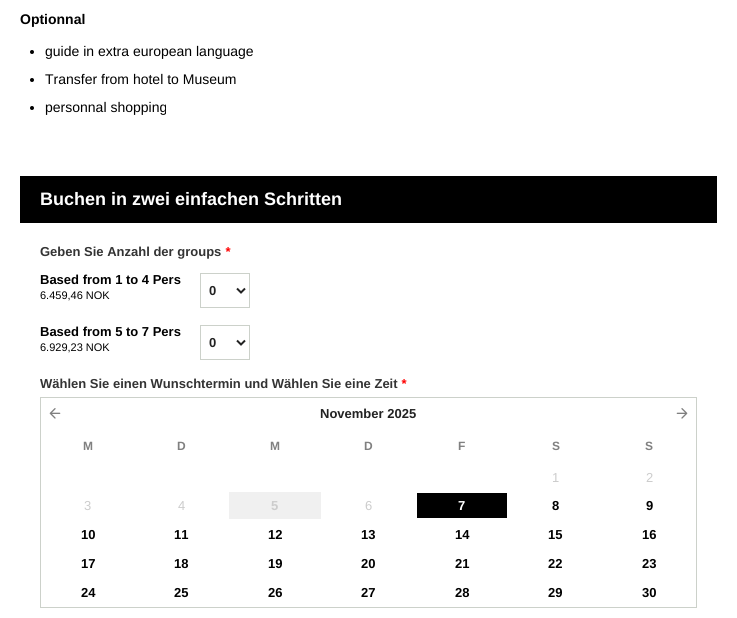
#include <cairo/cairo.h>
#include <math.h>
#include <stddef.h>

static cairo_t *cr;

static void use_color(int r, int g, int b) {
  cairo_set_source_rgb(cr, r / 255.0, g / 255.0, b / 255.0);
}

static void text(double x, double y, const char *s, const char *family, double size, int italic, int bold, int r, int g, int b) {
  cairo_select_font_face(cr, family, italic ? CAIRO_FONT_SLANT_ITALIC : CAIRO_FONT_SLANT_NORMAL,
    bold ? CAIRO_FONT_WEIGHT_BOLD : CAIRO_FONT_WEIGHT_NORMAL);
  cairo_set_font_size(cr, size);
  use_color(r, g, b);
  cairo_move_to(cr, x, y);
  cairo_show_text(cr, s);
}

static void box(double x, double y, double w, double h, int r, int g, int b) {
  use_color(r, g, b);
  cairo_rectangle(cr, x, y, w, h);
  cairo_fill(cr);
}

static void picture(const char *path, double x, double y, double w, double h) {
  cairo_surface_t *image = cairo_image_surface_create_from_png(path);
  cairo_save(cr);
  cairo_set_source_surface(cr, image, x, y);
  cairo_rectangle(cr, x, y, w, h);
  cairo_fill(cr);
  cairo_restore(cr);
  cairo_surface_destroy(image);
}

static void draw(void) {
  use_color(255, 255, 255);
  cairo_paint(cr);
  use_color(0, 0, 0);
  cairo_arc(cr, 32, 52, 2, 0, 2 * M_PI);
  cairo_fill(cr);
  cairo_arc(cr, 32, 80, 2, 0, 2 * M_PI);
  cairo_fill(cr);
  cairo_arc(cr, 32, 108, 2, 0, 2 * M_PI);
  cairo_fill(cr);
  box(20, 176, 697, 47, 0, 0, 0);
  cairo_rectangle(cr, 200.5, 273.5, 49, 34);
  use_color(204, 209, 202);
  cairo_set_line_width(cr, 1);
  cairo_stroke(cr);
  cairo_new_path(cr);
  cairo_move_to(cr, 237, 288.5);
  cairo_line_to(cr, 241, 292.5);
  cairo_line_to(cr, 245, 288.5);
  use_color(34, 34, 34);
  cairo_set_line_width(cr, 2);
  cairo_stroke(cr);
  cairo_rectangle(cr, 200.5, 325.5, 49, 34);
  use_color(204, 209, 202);
  cairo_set_line_width(cr, 1);
  cairo_stroke(cr);
  cairo_new_path(cr);
  cairo_move_to(cr, 237, 340.5);
  cairo_line_to(cr, 241, 344.5);
  cairo_line_to(cr, 245, 340.5);
  use_color(34, 34, 34);
  cairo_set_line_width(cr, 2);
  cairo_stroke(cr);
  cairo_rectangle(cr, 40.5, 397.5, 656, 210);
  use_color(204, 209, 202);
  cairo_set_line_width(cr, 1);
  cairo_stroke(cr);
  picture("img_01.png", 49, 408, 12, 11);
  picture("img_02.png", 676, 408, 12, 11);
  box(229, 492, 92, 27, 240, 240, 240);
  box(417, 493, 90, 25, 0, 0, 0);
  text(20, 24, "Optionnal", "Liberation Sans", 14, 0, 1, 0, 0, 0);
  text(45, 56, "guide in extra european language", "Liberation Sans", 14, 0, 0, 0, 0, 0);
  text(45, 84, "Transfer from hotel to Museum", "Liberation Sans", 14, 0, 0, 0, 0, 0);
  text(45, 112, "personnal shopping", "Liberation Sans", 14, 0, 0, 0, 0, 0);
  text(40, 205, "Buchen in zwei einfachen Schritten", "Liberation Sans", 18, 0, 1, 255, 255, 255);
  text(40, 256, "Geben Sie Anzahl der groups", "Liberation Sans", 13, 0, 1, 51, 51, 51);
  text(225, 256, "*", "Liberation Sans", 13, 1, 1, 255, 0, 0);
  text(40, 284, "Based from 1 to 4 Pers", "Liberation Sans", 13, 0, 1, 0, 0, 0);
  text(40, 299, "6.459,46 NOK", "Liberation Sans", 11, 0, 0, 0, 0, 0);
  text(209, 295, "0", "Liberation Sans", 13, 0, 1, 34, 34, 34);
  text(40, 336, "Based from 5 to 7 Pers", "Liberation Sans", 13, 0, 1, 0, 0, 0);
  text(40, 351, "6.929,23 NOK", "Liberation Sans", 11, 0, 0, 0, 0, 0);
  text(209, 347, "0", "Liberation Sans", 13, 0, 1, 34, 34, 34);
  text(40, 388, "Wählen Sie einen Wunschtermin und Wählen Sie eine Zeit", "Liberation Sans", 13, 0, 1, 51, 51, 51);
  text(401, 388, "*", "Liberation Sans", 13, 1, 1, 255, 0, 0);
  text(320, 418, "November 2025", "Liberation Sans", 13, 0, 1, 34, 34, 34);
  text(83, 450, "M", "Liberation Sans", 12, 0, 1, 128, 128, 128);
  text(177, 450, "D", "Liberation Sans", 12, 0, 1, 128, 128, 128);
  text(270, 450, "M", "Liberation Sans", 12, 0, 1, 128, 128, 128);
  text(364, 450, "D", "Liberation Sans", 12, 0, 1, 128, 128, 128);
  text(458, 450, "F", "Liberation Sans", 12, 0, 1, 128, 128, 128);
  text(552, 450, "S", "Liberation Sans", 12, 0, 1, 128, 128, 128);
  text(645, 450, "S", "Liberation Sans", 12, 0, 1, 128, 128, 128);
  text(552, 482, "1", "Liberation Sans", 13, 0, 0, 204, 204, 204);
  text(646, 482, "2", "Liberation Sans", 13, 0, 0, 204, 204, 204);
  text(84, 510, "3", "Liberation Sans", 13, 0, 0, 204, 204, 204);
  text(178, 510, "4", "Liberation Sans", 13, 0, 0, 204, 204, 204);
  text(271, 510, "5", "Liberation Sans", 13, 0, 1, 204, 204, 204);
  text(365, 510, "6", "Liberation Sans", 13, 0, 0, 204, 204, 204);
  text(458, 510, "7", "Liberation Sans", 13, 0, 1, 255, 255, 255);
  text(552, 510, "8", "Liberation Sans", 13, 0, 1, 0, 0, 0);
  text(646, 510, "9", "Liberation Sans", 13, 0, 1, 0, 0, 0);
  text(81, 539, "10", "Liberation Sans", 13, 0, 1, 0, 0, 0);
  text(174, 539, "11", "Liberation Sans", 13, 0, 1, 0, 0, 0);
  text(268, 539, "12", "Liberation Sans", 13, 0, 1, 0, 0, 0);
  text(361, 539, "13", "Liberation Sans", 13, 0, 1, 0, 0, 0);
  text(455, 539, "14", "Liberation Sans", 13, 0, 1, 0, 0, 0);
  text(548, 539, "15", "Liberation Sans", 13, 0, 1, 0, 0, 0);
  text(642, 539, "16", "Liberation Sans", 13, 0, 1, 0, 0, 0);
  text(81, 568, "17", "Liberation Sans", 13, 0, 1, 0, 0, 0);
  text(174, 568, "18", "Liberation Sans", 13, 0, 1, 0, 0, 0);
  text(268, 568, "19", "Liberation Sans", 13, 0, 1, 0, 0, 0);
  text(361, 568, "20", "Liberation Sans", 13, 0, 1, 0, 0, 0);
  text(455, 568, "21", "Liberation Sans", 13, 0, 1, 0, 0, 0);
  text(548, 568, "22", "Liberation Sans", 13, 0, 1, 0, 0, 0);
  text(642, 568, "23", "Liberation Sans", 13, 0, 1, 0, 0, 0);
  text(81, 597, "24", "Liberation Sans", 13, 0, 1, 0, 0, 0);
  text(174, 597, "25", "Liberation Sans", 13, 0, 1, 0, 0, 0);
  text(268, 597, "26", "Liberation Sans", 13, 0, 1, 0, 0, 0);
  text(361, 597, "27", "Liberation Sans", 13, 0, 1, 0, 0, 0);
  text(455, 597, "28", "Liberation Sans", 13, 0, 1, 0, 0, 0);
  text(548, 597, "29", "Liberation Sans", 13, 0, 1, 0, 0, 0);
  text(642, 597, "30", "Liberation Sans", 13, 0, 1, 0, 0, 0);
}

int main(void) {
  cairo_surface_t *surface = cairo_image_surface_create(CAIRO_FORMAT_RGB24, 737, 618);
  cr = cairo_create(surface);
  cairo_font_options_t *options = cairo_font_options_create();
  cairo_font_options_set_hint_metrics(options, CAIRO_HINT_METRICS_OFF);
  cairo_font_options_set_hint_style(options, CAIRO_HINT_STYLE_NONE);
  cairo_set_font_options(cr, options);
  cairo_set_miter_limit(cr, 4);
  draw();
  cairo_surface_write_to_png(surface, "out.png");
  cairo_font_options_destroy(options);
  cairo_destroy(cr);
  cairo_surface_destroy(surface);
  return 0;
}
